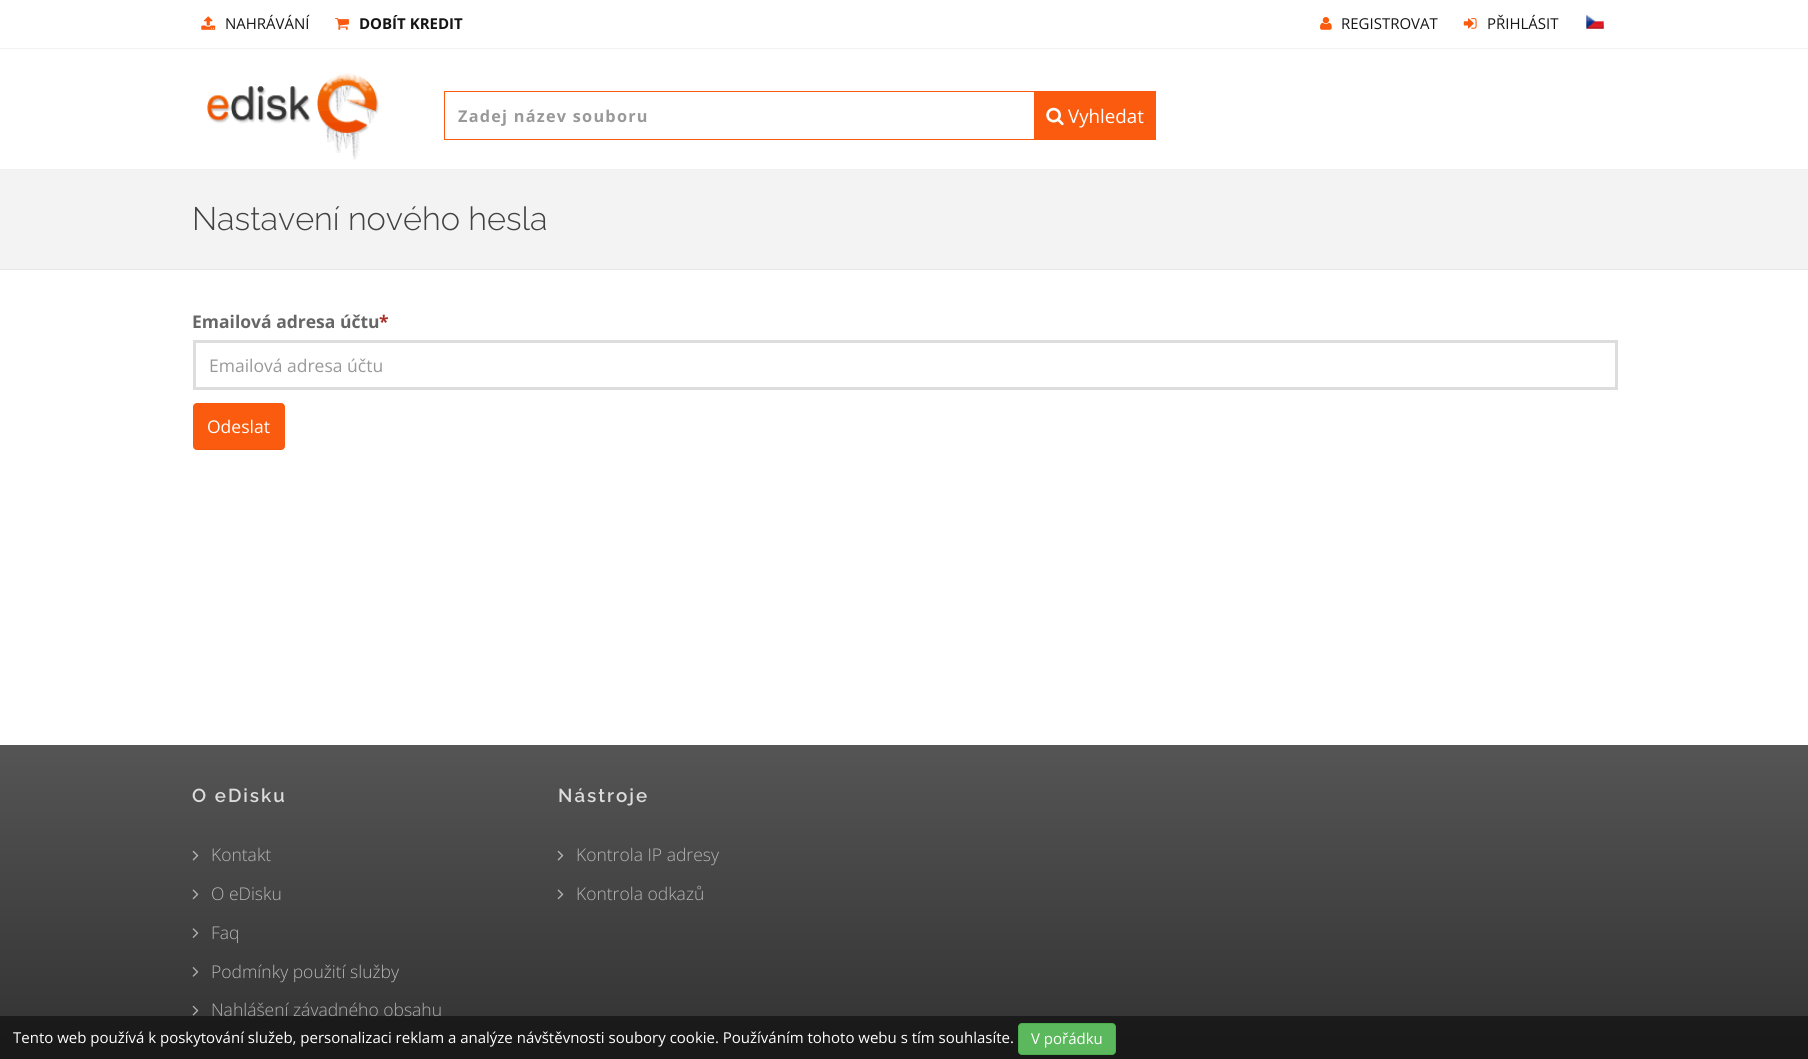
#include <cairo/cairo.h>
#include <math.h>
#include <stddef.h>

static cairo_t *cr;

static void use_color(int r, int g, int b) {
  cairo_set_source_rgb(cr, r / 255.0, g / 255.0, b / 255.0);
}

static void text(double x, double y, const char *s, const char *family, double size, int italic, int bold, int r, int g, int b) {
  cairo_select_font_face(cr, family, italic ? CAIRO_FONT_SLANT_ITALIC : CAIRO_FONT_SLANT_NORMAL,
    bold ? CAIRO_FONT_WEIGHT_BOLD : CAIRO_FONT_WEIGHT_NORMAL);
  cairo_set_font_size(cr, size);
  use_color(r, g, b);
  cairo_move_to(cr, x, y);
  cairo_show_text(cr, s);
}

static void spaced_text(double x, double y, const char *s, double letter, double word) {
  cairo_move_to(cr, x, y);
  while (*s) {
    char ch[5] = {0};
    int n = 0;
    do ch[n++] = *s++; while ((*s & 0xC0) == 0x80);
    cairo_show_text(cr, ch);
    cairo_rel_move_to(cr, letter + word * (*ch == ' '), 0);
  }
}

static void box(double x, double y, double w, double h, int r, int g, int b) {
  use_color(r, g, b);
  cairo_rectangle(cr, x, y, w, h);
  cairo_fill(cr);
}

static void round_rect(double x, double y, double w, double h, double r) {
  cairo_new_sub_path(cr);
  cairo_arc(cr, x + w - r, y + h - r, r, 0, M_PI / 2);
  cairo_arc(cr, x + r, y + h - r, r, M_PI / 2, M_PI);
  cairo_arc(cr, x + r, y + r, r, M_PI, 1.5 * M_PI);
  cairo_arc(cr, x + w - r, y + r, r, 1.5 * M_PI, 2 * M_PI);
  cairo_close_path(cr);
}

static void picture(const char *path, double x, double y, double w, double h) {
  cairo_surface_t *image = cairo_image_surface_create_from_png(path);
  cairo_save(cr);
  cairo_set_source_surface(cr, image, x, y);
  cairo_rectangle(cr, x, y, w, h);
  cairo_fill(cr);
  cairo_restore(cr);
  cairo_surface_destroy(image);
}

static void draw(void) {
  cairo_pattern_t *gradient;
  use_color(255, 255, 255);
  cairo_paint(cr);
  box(0, 169, 1808, 1, 242, 242, 242);
  box(0, 48, 1808, 1, 242, 242, 242);
  picture("img_01.png", 201, 16, 15, 14);
  picture("img_02.png", 335, 18, 14, 12);
  picture("img_03.png", 1320, 17, 12, 13);
  picture("img_04.png", 1463, 18, 14, 11);
  picture("img_05.png", 1586, 14, 18, 15);
  picture("img_06.png", 207, 73, 172, 87);
  cairo_rectangle(cr, 444.5, 91.5, 711, 48);
  use_color(250, 91, 15);
  cairo_set_line_width(cr, 1);
  cairo_stroke(cr);
  box(1034, 92, 121, 47, 250, 91, 15);
  picture("img_07.png", 1046, 107, 18, 19);
  box(0, 170, 1808, 99, 243, 243, 243);
  box(0, 269, 1808, 1, 231, 231, 231);
  cairo_rectangle(cr, 194.5, 341.5, 1422, 47);
  use_color(221, 221, 221);
  cairo_set_line_width(cr, 3);
  cairo_stroke(cr);
  use_color(250, 91, 15);
  round_rect(193, 403, 92, 47, 4);
  cairo_fill(cr);
  cairo_set_source_rgba(cr, 0, 0, 0, 0.05);
  cairo_new_path(cr);
  cairo_move_to(cr, 194, 448);
  cairo_curve_to(cr, 194, 449, 196, 450, 197, 450);
  cairo_line_to(cr, 281, 450);
  cairo_curve_to(cr, 283, 450, 285, 448, 285, 446);
  cairo_line_to(cr, 285, 445);
  cairo_curve_to(cr, 285, 447, 283, 449, 282, 449);
  cairo_line_to(cr, 196, 449);
  cairo_close_path(cr);
  cairo_fill(cr);
  gradient = cairo_pattern_create_linear(904, 745, 904, 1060);
  cairo_pattern_add_color_stop_rgba(gradient, 0, 0.333, 0.333, 0.333, 1);
  cairo_pattern_add_color_stop_rgba(gradient, 1, 0.192, 0.192, 0.192, 1);
  cairo_set_source(cr, gradient);
  cairo_pattern_destroy(gradient);
  cairo_rectangle(cr, 0, 745, 1808, 314);
  cairo_fill(cr);
  picture("img_08.png", 192, 850, 7, 11);
  picture("img_09.png", 192, 889, 7, 11);
  picture("img_10.png", 192, 928, 7, 10);
  picture("img_11.png", 192, 967, 7, 10);
  picture("img_12.png", 192, 1005, 7, 11);
  picture("img_08.png", 557, 850, 7, 11);
  picture("img_09.png", 557, 889, 7, 11);
  text(225, 29, "NAHRÁVÁNÍ", "Open Sans", 15, 0, 0, 21, 21, 21);
  text(359, 29, "DOBÍT KREDIT", "Open Sans", 15, 0, 1, 21, 21, 21);
  text(1341, 29, "REGISTROVAT", "Open Sans", 15, 0, 0, 21, 21, 21);
  text(1487, 29, "PŘIHLÁSIT", "Open Sans", 15, 0, 0, 21, 21, 21);
  cairo_select_font_face(cr, "Open Sans", CAIRO_FONT_SLANT_NORMAL, CAIRO_FONT_WEIGHT_BOLD);
  cairo_set_font_size(cr, 16.25);
  use_color(153, 153, 153);
  spaced_text(458, 122, "Zadej název souboru", 1.25, 0);
  text(1068, 123, "Vyhledat", "Open Sans", 18.75, 0, 0, 255, 255, 255);
  text(192, 230, "Nastavení nového hesla", "Raleway Light", 32.5, 0, 0, 65, 65, 65);
  text(192, 328, "Emailová adresa účtu", "Open Sans", 17.5, 0, 1, 102, 102, 102);
  text(379, 328, "*", "Open Sans", 17.5, 0, 1, 169, 48, 42);
  text(209, 372, "Emailová adresa účtu", "Open Sans", 17.5, 0, 0, 153, 153, 153);
  text(207, 433, "Odeslat", "Open Sans", 17.5, 0, 0, 255, 255, 255);
  cairo_select_font_face(cr, "Raleway SemiBold", CAIRO_FONT_SLANT_NORMAL, CAIRO_FONT_WEIGHT_NORMAL);
  cairo_set_font_size(cr, 18.75);
  use_color(220, 220, 220);
  spaced_text(192, 802, "O eDisku", 2, 0);
  text(211, 861, "Kontakt", "Open Sans Light", 17.5, 0, 0, 182, 182, 182);
  text(211, 900, "O eDisku", "Open Sans Light", 17.5, 0, 0, 182, 182, 182);
  text(211, 939, "Faq", "Open Sans Light", 17.5, 0, 0, 182, 182, 182);
  text(211, 978, "Podmínky použití služby", "Open Sans Light", 17.5, 0, 0, 182, 182, 182);
  text(211, 1016, "Nahlášení závadného obsahu", "Open Sans Light", 17.5, 0, 0, 175, 175, 175);
  cairo_select_font_face(cr, "Raleway SemiBold", CAIRO_FONT_SLANT_NORMAL, CAIRO_FONT_WEIGHT_NORMAL);
  cairo_set_font_size(cr, 18.75);
  use_color(220, 220, 220);
  spaced_text(558, 802, "Nástroje", 2, 0);
  text(576, 861, "Kontrola IP adresy", "Open Sans Light", 17.5, 0, 0, 182, 182, 182);
  text(576, 900, "Kontrola odkazů", "Open Sans Light", 17.5, 0, 0, 182, 182, 182);
  cairo_set_source_rgba(cr, 0, 0, 0, 0.5);
  cairo_rectangle(cr, 0, 1016, 1808, 43);
  cairo_fill(cr);
  text(13, 1043, "Tento web používá k poskytování služeb, personalizaci reklam a analýze návštěvnosti soubory cookie. Používáním tohoto webu s tím souhlasíte.", "Open Sans", 15, 0, 0, 255, 255, 255);
  use_color(92, 184, 92);
  round_rect(1018.5, 1023.5, 97, 31, 3.5);
  cairo_fill_preserve(cr);
  use_color(76, 174, 76);
  cairo_set_line_width(cr, 1);
  cairo_stroke(cr);
  text(1031, 1044, "V pořádku", "Open Sans", 15, 0, 0, 255, 255, 255);
}

int main(void) {
  cairo_surface_t *surface = cairo_image_surface_create(CAIRO_FORMAT_RGB24, 1808, 1059);
  cr = cairo_create(surface);
  cairo_font_options_t *options = cairo_font_options_create();
  cairo_font_options_set_hint_metrics(options, CAIRO_HINT_METRICS_OFF);
  cairo_font_options_set_hint_style(options, CAIRO_HINT_STYLE_NONE);
  cairo_set_font_options(cr, options);
  cairo_set_miter_limit(cr, 4);
  draw();
  cairo_surface_write_to_png(surface, "out.png");
  cairo_font_options_destroy(options);
  cairo_destroy(cr);
  cairo_surface_destroy(surface);
  return 0;
}
